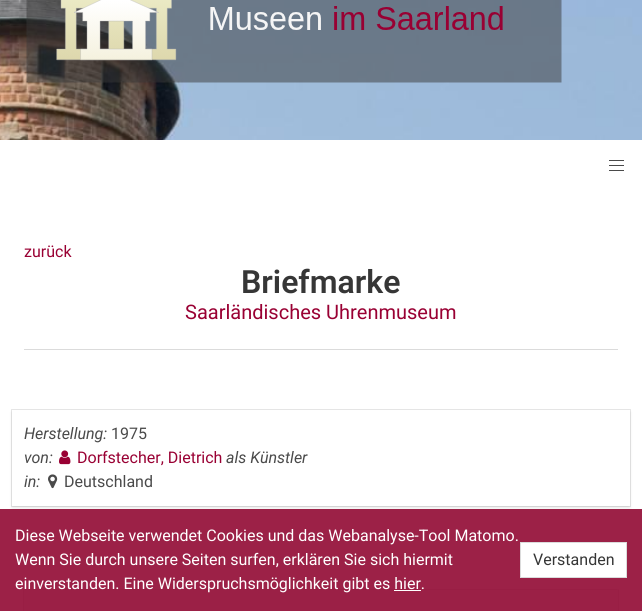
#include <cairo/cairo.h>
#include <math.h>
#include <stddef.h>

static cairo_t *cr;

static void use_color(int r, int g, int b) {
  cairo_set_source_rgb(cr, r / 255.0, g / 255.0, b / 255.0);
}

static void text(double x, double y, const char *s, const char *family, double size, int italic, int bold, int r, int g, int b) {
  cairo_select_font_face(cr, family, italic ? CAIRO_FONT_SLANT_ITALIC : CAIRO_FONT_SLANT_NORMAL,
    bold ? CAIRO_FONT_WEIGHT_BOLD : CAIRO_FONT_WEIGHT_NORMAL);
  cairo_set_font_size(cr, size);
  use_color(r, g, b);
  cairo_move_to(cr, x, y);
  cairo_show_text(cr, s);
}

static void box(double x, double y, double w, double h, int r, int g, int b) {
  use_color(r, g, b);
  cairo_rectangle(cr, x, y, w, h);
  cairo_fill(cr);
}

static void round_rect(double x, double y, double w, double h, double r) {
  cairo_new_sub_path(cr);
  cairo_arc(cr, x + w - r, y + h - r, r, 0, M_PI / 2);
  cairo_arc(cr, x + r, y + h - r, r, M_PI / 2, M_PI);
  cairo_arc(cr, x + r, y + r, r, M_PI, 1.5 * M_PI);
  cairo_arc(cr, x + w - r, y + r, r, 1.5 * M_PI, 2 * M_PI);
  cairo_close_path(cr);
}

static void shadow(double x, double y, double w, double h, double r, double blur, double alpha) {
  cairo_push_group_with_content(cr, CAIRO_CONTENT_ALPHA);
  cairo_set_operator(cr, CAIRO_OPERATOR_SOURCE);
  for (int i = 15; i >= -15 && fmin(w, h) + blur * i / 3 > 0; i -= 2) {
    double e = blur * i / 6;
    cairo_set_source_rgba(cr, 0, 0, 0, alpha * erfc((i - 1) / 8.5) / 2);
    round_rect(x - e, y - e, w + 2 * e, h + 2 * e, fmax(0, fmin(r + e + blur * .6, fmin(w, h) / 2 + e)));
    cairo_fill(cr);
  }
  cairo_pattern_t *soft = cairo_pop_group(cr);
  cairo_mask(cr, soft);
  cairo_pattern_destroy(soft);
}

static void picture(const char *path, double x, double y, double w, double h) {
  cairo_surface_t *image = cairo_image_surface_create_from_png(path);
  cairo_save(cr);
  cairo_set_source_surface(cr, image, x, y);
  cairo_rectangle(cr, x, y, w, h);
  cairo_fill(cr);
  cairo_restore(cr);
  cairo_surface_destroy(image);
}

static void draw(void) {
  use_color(255, 255, 255);
  cairo_paint(cr);
  picture("img_01.png", 0, 0, 642, 140);
  picture("img_02.png", 26, 0, 536, 83);
  box(609, 160, 15, 1, 74, 74, 74);
  box(609, 165, 15, 1, 74, 74, 74);
  box(609, 170, 15, 1, 74, 74, 74);
  box(24, 349, 594, 1, 219, 219, 219);
  cairo_rectangle(cr, 11.5, 409.5, 619, 97);
  use_color(231, 231, 231);
  cairo_set_line_width(cr, 1);
  cairo_stroke(cr);
  cairo_save(cr);
  cairo_set_fill_rule(cr, CAIRO_FILL_RULE_EVEN_ODD);
  cairo_new_path(cr);
  cairo_move_to(cr, 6, 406);
  cairo_line_to(cr, 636, 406);
  cairo_line_to(cr, 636, 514);
  cairo_line_to(cr, 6, 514);
  cairo_close_path(cr);
  cairo_move_to(cr, 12, 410);
  cairo_line_to(cr, 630, 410);
  cairo_line_to(cr, 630, 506);
  cairo_line_to(cr, 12, 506);
  cairo_close_path(cr);
  cairo_clip(cr);
  use_color(10, 10, 10);
  shadow(12, 412, 618, 96, 0, 1.5, 0.1);
  cairo_restore(cr);
  picture("img_03.png", 59, 450, 12, 15);
  picture("img_04.png", 48, 474, 10, 15);
  cairo_rectangle(cr, 23.5, 589.5, 595, 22);
  cairo_stroke(cr);
  use_color(10, 10, 10);
  shadow(24, 592, 594, 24, 0, 1.5, 0.1);
  box(24, 590, 594, 21, 245, 245, 245);
  cairo_set_source_rgba(cr, 0.569, 0.039, 0.2, 0.9);
  cairo_rectangle(cr, 0, 509, 642, 102);
  cairo_fill(cr);
  box(394, 590, 27, 1, 255, 255, 255);
  cairo_rectangle(cr, 520.5, 542.5, 106, 35);
  cairo_fill_preserve(cr);
  use_color(219, 219, 219);
  cairo_stroke(cr);
  text(24, 257, "zurück", "Roboto", 16, 0, 0, 153, 0, 51);
  text(241, 293, "Briefmarke", "Roboto SemiBold", 32, 0, 0, 54, 54, 54);
  text(185, 319, "Saarländisches Uhrenmuseum", "Roboto", 20, 0, 0, 153, 0, 51);
  text(24, 439, "Herstellung:", "Roboto", 16, 1, 0, 74, 74, 74);
  text(111, 439, "1975", "Roboto", 16, 0, 0, 74, 74, 74);
  text(24, 463, "von:", "Roboto", 16, 1, 0, 74, 74, 74);
  text(77, 463, "Dorfstecher, Dietrich", "Roboto", 16, 0, 0, 153, 0, 51);
  text(226, 463, "als Künstler", "Roboto", 16, 1, 0, 74, 74, 74);
  text(24, 487, "in:", "Roboto", 16, 1, 0, 74, 74, 74);
  text(64, 487, "Deutschland", "Roboto", 16, 0, 0, 74, 74, 74);
  text(15, 541, "Diese Webseite verwendet Cookies und das Webanalyse-Tool Matomo.", "Roboto", 16, 0, 0, 255, 255, 255);
  text(15, 565, "Wenn Sie durch unsere Seiten surfen, erklären Sie sich hiermit", "Roboto", 16, 0, 0, 255, 255, 255);
  text(15, 589, "einverstanden. Eine Widerspruchsmöglichkeit gibt es hier.", "Roboto", 16, 0, 0, 255, 255, 255);
  text(533, 565, "Verstanden", "Roboto", 16, 0, 0, 54, 54, 54);
}

int main(void) {
  cairo_surface_t *surface = cairo_image_surface_create(CAIRO_FORMAT_RGB24, 642, 611);
  cr = cairo_create(surface);
  cairo_font_options_t *options = cairo_font_options_create();
  cairo_font_options_set_hint_metrics(options, CAIRO_HINT_METRICS_OFF);
  cairo_font_options_set_hint_style(options, CAIRO_HINT_STYLE_NONE);
  cairo_set_font_options(cr, options);
  cairo_set_miter_limit(cr, 4);
  draw();
  cairo_surface_write_to_png(surface, "out.png");
  cairo_font_options_destroy(options);
  cairo_destroy(cr);
  cairo_surface_destroy(surface);
  return 0;
}
